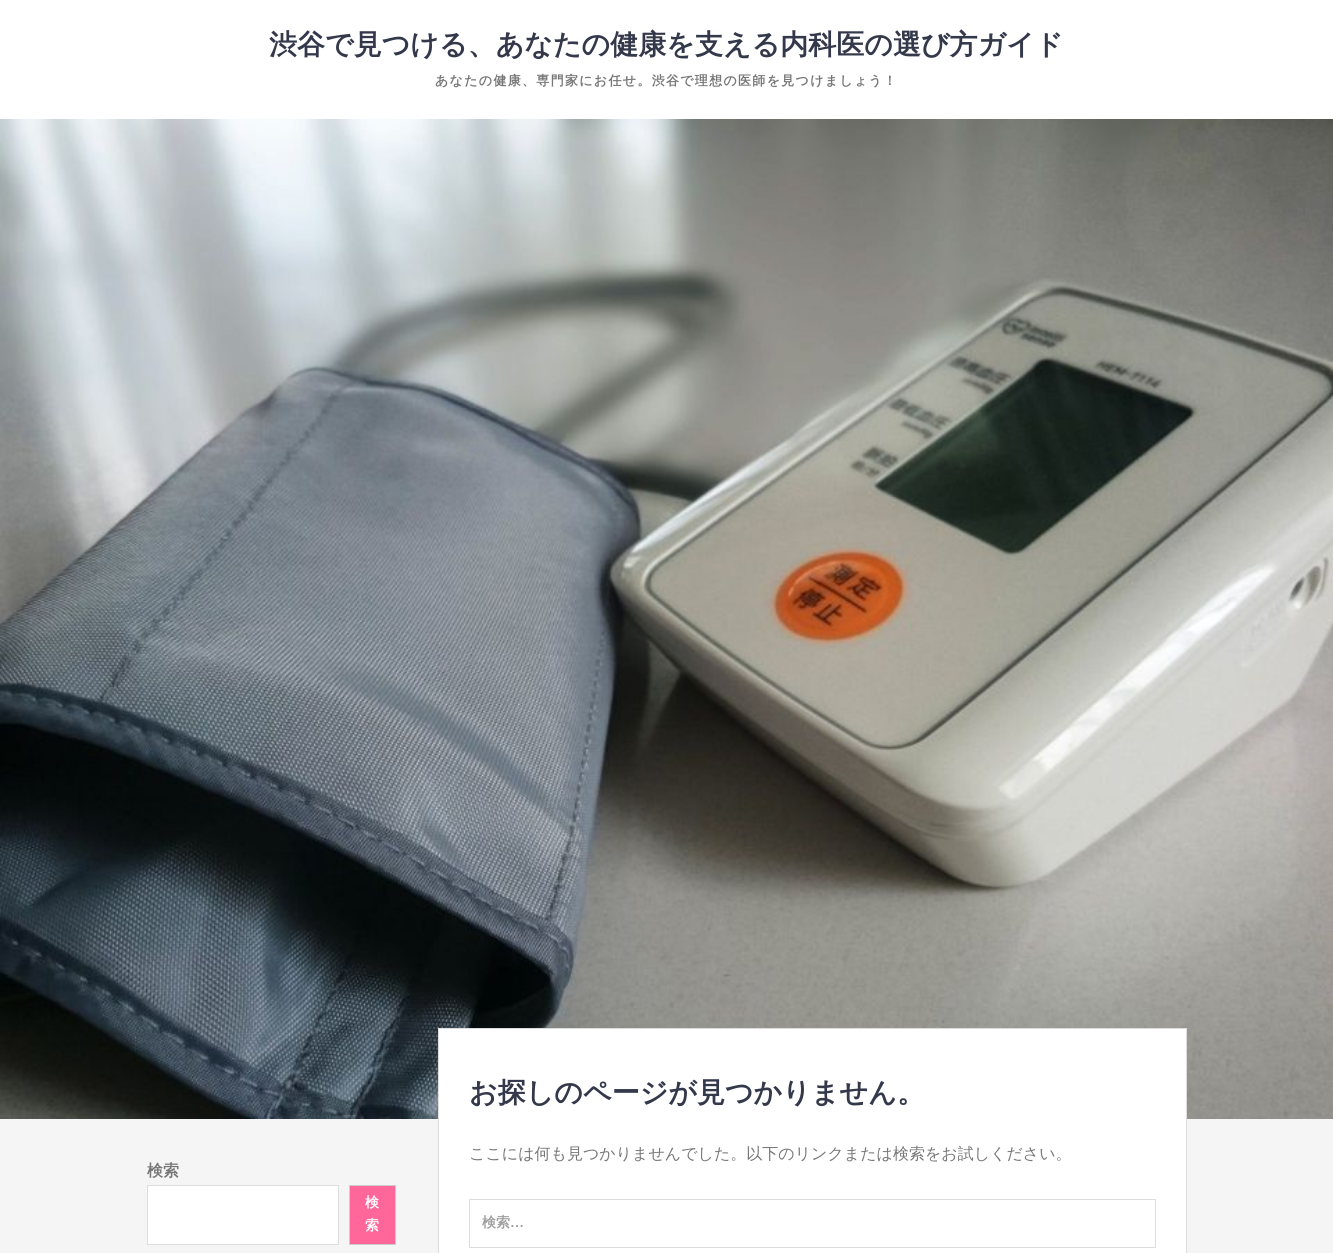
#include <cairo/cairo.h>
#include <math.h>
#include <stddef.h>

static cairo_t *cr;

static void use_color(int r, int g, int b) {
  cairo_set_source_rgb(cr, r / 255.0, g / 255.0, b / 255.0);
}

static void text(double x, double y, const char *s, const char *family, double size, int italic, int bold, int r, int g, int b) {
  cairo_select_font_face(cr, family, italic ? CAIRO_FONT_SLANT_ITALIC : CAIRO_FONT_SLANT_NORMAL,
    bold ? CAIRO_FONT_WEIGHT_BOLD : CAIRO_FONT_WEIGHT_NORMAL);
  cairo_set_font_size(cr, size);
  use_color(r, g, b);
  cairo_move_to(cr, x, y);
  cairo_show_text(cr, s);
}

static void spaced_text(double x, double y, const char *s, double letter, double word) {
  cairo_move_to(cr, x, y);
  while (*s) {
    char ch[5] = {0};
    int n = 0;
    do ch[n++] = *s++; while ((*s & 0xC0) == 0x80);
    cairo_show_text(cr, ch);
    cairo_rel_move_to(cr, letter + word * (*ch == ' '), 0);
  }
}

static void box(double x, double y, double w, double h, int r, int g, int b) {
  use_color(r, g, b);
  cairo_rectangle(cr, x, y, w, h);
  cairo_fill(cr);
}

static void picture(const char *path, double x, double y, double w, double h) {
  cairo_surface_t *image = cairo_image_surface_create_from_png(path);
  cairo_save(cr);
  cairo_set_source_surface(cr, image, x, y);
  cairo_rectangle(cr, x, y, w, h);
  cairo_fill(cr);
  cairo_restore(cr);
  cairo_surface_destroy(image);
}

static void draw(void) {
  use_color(245, 245, 245);
  cairo_paint(cr);
  box(0, 0, 1333, 119, 255, 255, 255);
  picture("img_01.png", 0, 119, 1333, 1000);
  cairo_rectangle(cr, 147.5, 1185.5, 191, 59);
  cairo_fill_preserve(cr);
  use_color(221, 221, 221);
  cairo_set_line_width(cr, 1);
  cairo_stroke(cr);
  use_color(255, 102, 153);
  cairo_rectangle(cr, 349.5, 1185.5, 46, 59);
  cairo_fill_preserve(cr);
  use_color(204, 204, 204);
  cairo_stroke(cr);
  use_color(255, 255, 255);
  cairo_rectangle(cr, 438.5, 1028.5, 748, 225);
  cairo_fill_preserve(cr);
  use_color(221, 221, 221);
  cairo_stroke(cr);
  cairo_rectangle(cr, 469.5, 1199.5, 686, 48);
  cairo_stroke(cr);
  text(269, 54, "渋谷で見つける、あなたの健康を支える内科医の選び方ガイド", "WenQuanYi Zen Hei", 28, 0, 1, 51, 56, 74);
  cairo_set_font_size(cr, 13);
  use_color(119, 119, 119);
  spaced_text(435, 85, "あなたの健康、専門家にお任せ。渋谷で理想の医師を見つけましょう！", 1.3, 0);
  text(147, 1176, "検索", "WenQuanYi Zen Hei", 16, 0, 1, 119, 119, 119);
  cairo_set_font_size(cr, 14);
  use_color(255, 255, 255);
  spaced_text(365, 1207, "検", 1, 0);
  spaced_text(365, 1230, "索", 1, 0);
  text(469, 1102, "お探しのページが見つかりません。", "WenQuanYi Zen Hei", 28, 0, 1, 51, 56, 74);
  text(469, 1159, "ここには何も見つかりませんでした。以下のリンクまたは検索をお試しください。", "WenQuanYi Zen Hei Medium", 16, 0, 0, 119, 119, 119);
  text(482, 1227, "検索", "WenQuanYi Zen Hei", 14, 0, 1, 158, 158, 158);
  text(510, 1227, "…", "Istok Web", 14, 0, 1, 158, 158, 158);
}

int main(void) {
  cairo_surface_t *surface = cairo_image_surface_create(CAIRO_FORMAT_RGB24, 1333, 1253);
  cr = cairo_create(surface);
  cairo_font_options_t *options = cairo_font_options_create();
  cairo_font_options_set_hint_metrics(options, CAIRO_HINT_METRICS_OFF);
  cairo_font_options_set_hint_style(options, CAIRO_HINT_STYLE_NONE);
  cairo_set_font_options(cr, options);
  cairo_set_miter_limit(cr, 4);
  draw();
  cairo_surface_write_to_png(surface, "out.png");
  cairo_font_options_destroy(options);
  cairo_destroy(cr);
  cairo_surface_destroy(surface);
  return 0;
}
